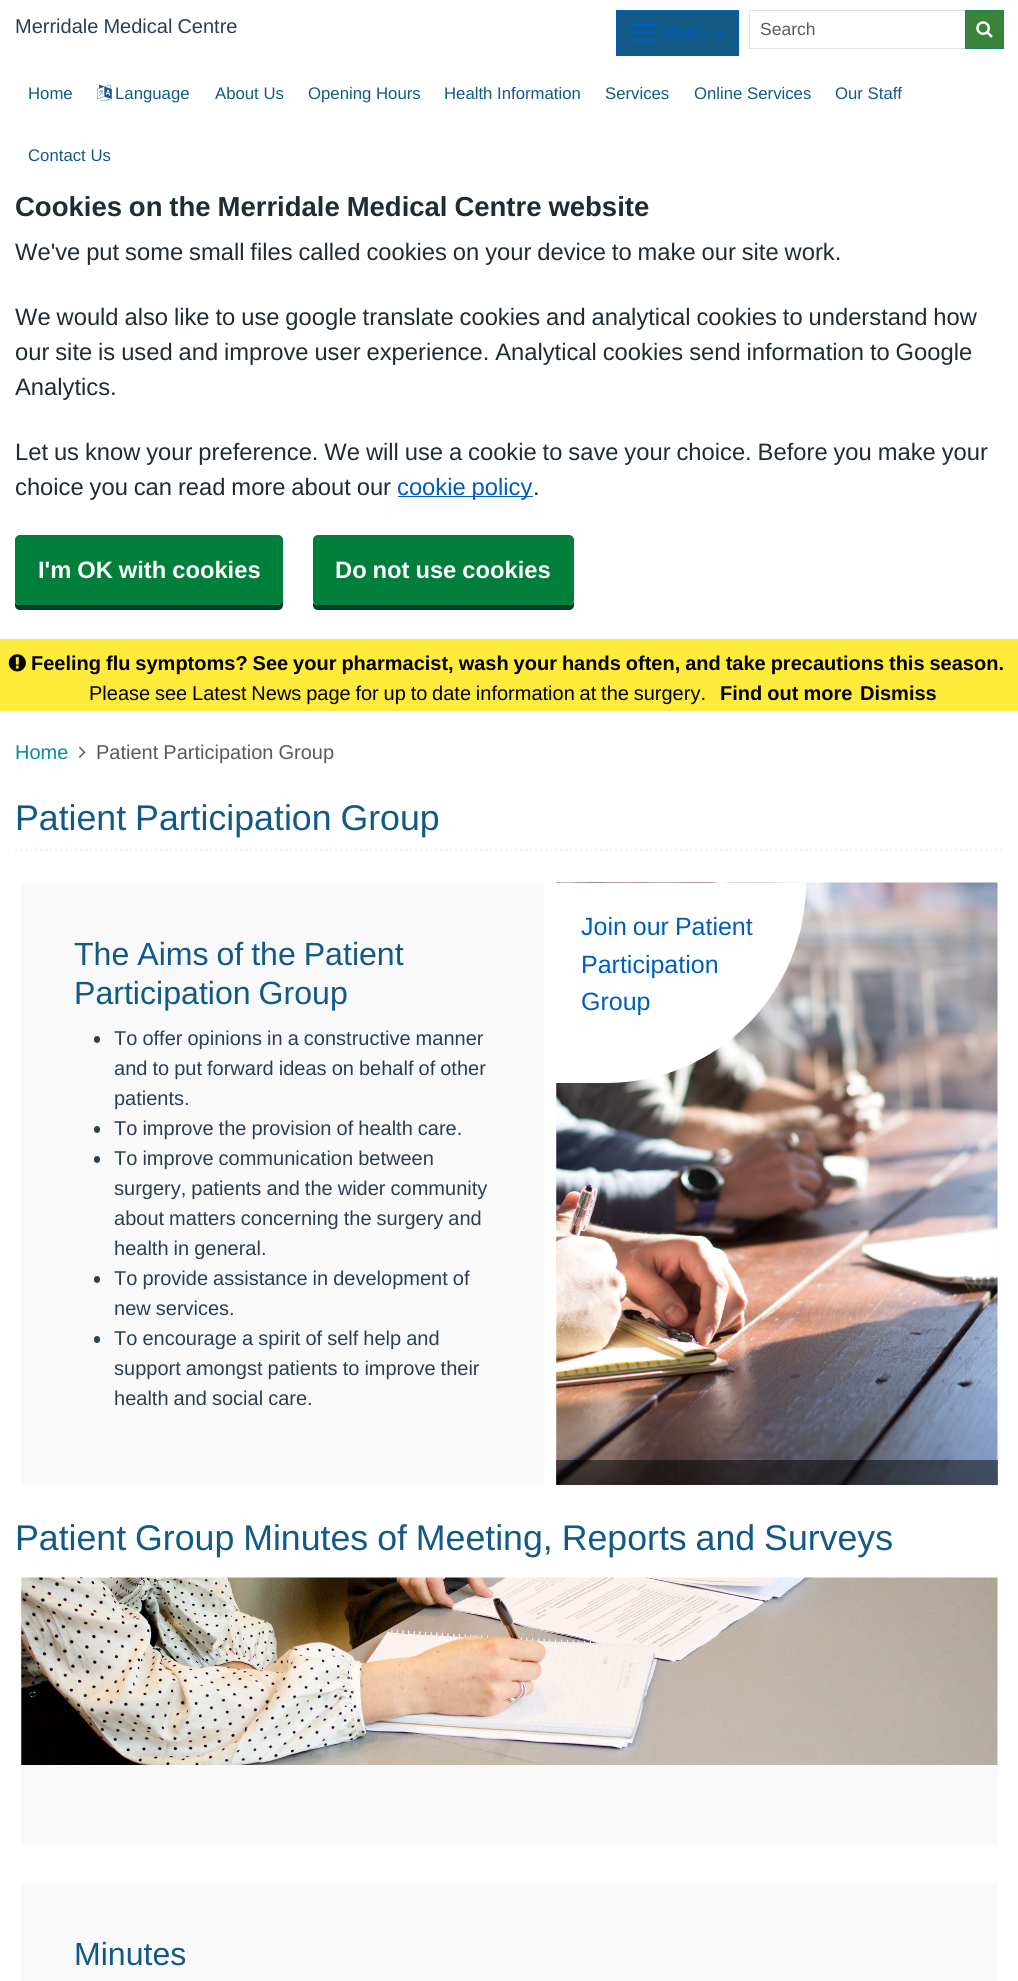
#include <cairo/cairo.h>
#include <math.h>
#include <stddef.h>

static cairo_t *cr;

static void use_color(int r, int g, int b) {
  cairo_set_source_rgb(cr, r / 255.0, g / 255.0, b / 255.0);
}

static void text(double x, double y, const char *s, const char *family, double size, int italic, int bold, int r, int g, int b) {
  cairo_select_font_face(cr, family, italic ? CAIRO_FONT_SLANT_ITALIC : CAIRO_FONT_SLANT_NORMAL,
    bold ? CAIRO_FONT_WEIGHT_BOLD : CAIRO_FONT_WEIGHT_NORMAL);
  cairo_set_font_size(cr, size);
  use_color(r, g, b);
  cairo_move_to(cr, x, y);
  cairo_show_text(cr, s);
}

static void spaced_text(double x, double y, const char *s, double letter, double word) {
  cairo_move_to(cr, x, y);
  while (*s) {
    char ch[5] = {0};
    int n = 0;
    do ch[n++] = *s++; while ((*s & 0xC0) == 0x80);
    cairo_show_text(cr, ch);
    cairo_rel_move_to(cr, letter + word * (*ch == ' '), 0);
  }
}

static void box(double x, double y, double w, double h, int r, int g, int b) {
  use_color(r, g, b);
  cairo_rectangle(cr, x, y, w, h);
  cairo_fill(cr);
}

static void round_rect(double x, double y, double w, double h, double r) {
  cairo_new_sub_path(cr);
  cairo_arc(cr, x + w - r, y + h - r, r, 0, M_PI / 2);
  cairo_arc(cr, x + r, y + h - r, r, M_PI / 2, M_PI);
  cairo_arc(cr, x + r, y + r, r, M_PI, 1.5 * M_PI);
  cairo_arc(cr, x + w - r, y + r, r, 1.5 * M_PI, 2 * M_PI);
  cairo_close_path(cr);
}

static void picture(const char *path, double x, double y, double w, double h) {
  cairo_surface_t *image = cairo_image_surface_create_from_png(path);
  cairo_save(cr);
  cairo_set_source_surface(cr, image, x, y);
  cairo_rectangle(cr, x, y, w, h);
  cairo_fill(cr);
  cairo_restore(cr);
  cairo_surface_destroy(image);
}

static void draw(void) {
  use_color(255, 255, 255);
  cairo_paint(cr);
  use_color(18, 90, 133);
  cairo_rectangle(cr, 616.5, 10.5, 122, 45);
  cairo_fill_preserve(cr);
  use_color(0, 94, 184);
  cairo_set_line_width(cr, 1);
  cairo_stroke(cr);
  round_rect(630, 24, 28, 3, 1.5);
  cairo_fill(cr);
  round_rect(630, 31, 28, 3, 1.5);
  cairo_fill(cr);
  round_rect(630, 39, 28, 3, 1.5);
  cairo_fill(cr);
  cairo_new_path(cr);
  cairo_move_to(cr, 715, 31);
  cairo_line_to(cr, 725, 31);
  cairo_line_to(cr, 720, 36);
  cairo_close_path(cr);
  cairo_fill(cr);
  cairo_rectangle(cr, 749.5, 10.5, 216, 38);
  use_color(222, 226, 230);
  cairo_stroke(cr);
  use_color(58, 131, 58);
  cairo_rectangle(cr, 965.5, 10.5, 38, 38);
  cairo_fill_preserve(cr);
  use_color(25, 135, 84);
  cairo_stroke(cr);
  picture("img_01.png", 976, 21, 17, 17);
  picture("img_02.png", 97, 84, 15, 18);
  box(0, 639, 1018, 72, 255, 235, 59);
  picture("img_03.png", 8, 654, 18, 18);
  picture("img_04.png", 79, 746, 7, 12);
  cairo_new_path(cr);
  cairo_move_to(cr, 15, 850);
  cairo_line_to(cr, 1004, 850);
  use_color(244, 244, 244);
  cairo_set_line_width(cr, 2.5);
  cairo_set_dash(cr, (double[]){2.5, 2.5}, 2, 0);
  cairo_stroke(cr);
  box(21, 883, 523, 602, 249, 249, 250);
  use_color(44, 62, 80);
  round_rect(94, 1036, 6, 7, 3);
  cairo_fill(cr);
  round_rect(94, 1126, 6, 7, 3);
  cairo_fill(cr);
  round_rect(94, 1156, 6, 7, 3);
  cairo_fill(cr);
  round_rect(94, 1276, 6, 7, 3);
  cairo_fill(cr);
  round_rect(94, 1336, 6, 7, 3);
  cairo_fill(cr);
  box(556, 883, 442, 602, 249, 249, 250);
  picture("img_05.png", 556, 882, 442, 603);
  use_color(255, 255, 255);
  cairo_new_path(cr);
  cairo_move_to(cr, 556, 883);
  cairo_line_to(cr, 806, 883);
  cairo_curve_to(cr, 806, 993.5, 716.5, 1083, 606, 1083);
  cairo_line_to(cr, 556, 1083);
  cairo_close_path(cr);
  cairo_fill(cr);
  cairo_set_source_rgba(cr, 0, 0, 0, 0.5);
  cairo_rectangle(cr, 556, 1460, 442, 25);
  cairo_fill(cr);
  box(21, 1578, 977, 267, 249, 249, 250);
  picture("img_06.png", 21, 1577, 977, 188);
  box(21, 1883, 977, 98, 249, 249, 250);
  box(398, 496, 135, 1, 0, 94, 184);
  use_color(0, 64, 30);
  cairo_new_path(cr);
  cairo_move_to(cr, 15, 600);
  cairo_line_to(cr, 15, 605);
  cairo_curve_to(cr, 15, 608, 17, 610, 20, 610);
  cairo_line_to(cr, 278, 610);
  cairo_curve_to(cr, 281, 610, 283, 608, 283, 605);
  cairo_line_to(cr, 283, 545);
  cairo_line_to(cr, 282, 543);
  cairo_line_to(cr, 282, 600);
  cairo_curve_to(cr, 282, 603, 280, 605, 278, 605);
  cairo_line_to(cr, 20, 605);
  cairo_curve_to(cr, 17, 605, 15, 603, 15, 600);
  cairo_close_path(cr);
  cairo_fill(cr);
  use_color(0, 127, 59);
  round_rect(15, 535, 268, 70, 5);
  cairo_fill(cr);
  use_color(0, 64, 30);
  cairo_new_path(cr);
  cairo_move_to(cr, 313, 602);
  cairo_line_to(cr, 313, 605);
  cairo_curve_to(cr, 313, 608, 315, 610, 318, 610);
  cairo_line_to(cr, 569, 610);
  cairo_curve_to(cr, 572, 610, 574, 608, 574, 605);
  cairo_line_to(cr, 574, 543);
  cairo_line_to(cr, 574, 600);
  cairo_curve_to(cr, 574, 603, 572, 605, 569, 605);
  cairo_line_to(cr, 318, 605);
  cairo_curve_to(cr, 316, 605, 314, 604, 313, 602);
  cairo_close_path(cr);
  cairo_fill(cr);
  use_color(0, 127, 59);
  round_rect(313, 535, 261, 70, 5);
  cairo_fill(cr);
  cairo_select_font_face(cr, "Liberation Sans", CAIRO_FONT_SLANT_NORMAL, CAIRO_FONT_WEIGHT_NORMAL);
  cairo_set_font_size(cr, 20);
  use_color(44, 62, 80);
  spaced_text(15, 33, "Merridale Medical Centre", 0, -0.5);
  text(662, 39, "Menu", "Liberation Sans", 17.5, 0, 0, 0, 94, 184);
  text(760, 35, "Search", "Liberation Sans", 17.5, 0, 0, 89, 92, 95);
  text(28, 99, "Home", "Liberation Sans", 16.75, 0, 0, 18, 90, 133);
  text(115, 99, "Language", "Liberation Sans", 16.75, 0, 0, 18, 90, 133);
  text(215, 99, "About Us", "Liberation Sans", 16.75, 0, 0, 18, 90, 133);
  text(308, 99, "Opening Hours", "Liberation Sans", 16.75, 0, 0, 18, 90, 133);
  text(444, 99, "Health Information", "Liberation Sans", 16.75, 0, 0, 18, 90, 133);
  text(605, 99, "Services", "Liberation Sans", 16.75, 0, 0, 18, 90, 133);
  text(694, 99, "Online Services", "Liberation Sans", 16.75, 0, 0, 18, 90, 133);
  text(835, 99, "Our Staff", "Liberation Sans", 16.75, 0, 0, 18, 90, 133);
  text(28, 161, "Contact Us", "Liberation Sans", 16.75, 0, 0, 18, 90, 133);
  cairo_select_font_face(cr, "Liberation Sans", CAIRO_FONT_SLANT_NORMAL, CAIRO_FONT_WEIGHT_BOLD);
  cairo_set_font_size(cr, 20);
  use_color(0, 0, 0);
  spaced_text(31, 670, "Feeling flu symptoms? See your pharmacist, wash your hands often, and take precautions this season.", 0, -0.6);
  cairo_select_font_face(cr, "Liberation Sans", CAIRO_FONT_SLANT_NORMAL, CAIRO_FONT_WEIGHT_NORMAL);
  spaced_text(89, 700, "Please see Latest News page for up to date information at the surgery.", 0, -0.75);
  cairo_select_font_face(cr, "Liberation Sans", CAIRO_FONT_SLANT_NORMAL, CAIRO_FONT_WEIGHT_BOLD);
  spaced_text(720, 700, "Find out more", 0, -0.5);
  text(860, 700, "Dismiss", "Liberation Sans", 20, 0, 1, 0, 0, 0);
  text(15, 759, "Home", "Liberation Sans", 20, 0, 0, 15, 138, 153);
  use_color(89, 92, 95);
  spaced_text(96, 759, "Patient Participation Group", 0, -0.5);
  cairo_set_font_size(cr, 35.7);
  use_color(18, 90, 133);
  spaced_text(15, 830, "Patient Participation Group", 0, -1);
  cairo_set_font_size(cr, 32.1);
  spaced_text(74, 965, "The Aims of the Patient", 0, -1);
  spaced_text(74, 1004, "Participation Group", 0, -1);
  cairo_set_font_size(cr, 20);
  use_color(44, 62, 80);
  spaced_text(114, 1045, "To offer opinions in a constructive manner", 0, -0.5);
  spaced_text(114, 1075, "and to put forward ideas on behalf of other", 0, -0.5);
  text(114, 1105, "patients.", "Liberation Sans", 20, 0, 0, 44, 62, 80);
  spaced_text(114, 1135, "To improve the provision of health care.", 0, -0.5);
  spaced_text(114, 1165, "To improve communication between", 0, -0.5);
  spaced_text(114, 1195, "surgery, patients and the wider community", 0, -0.5);
  spaced_text(114, 1225, "about matters concerning the surgery and", 0, -0.5);
  spaced_text(114, 1255, "health in general.", 0, -0.5);
  spaced_text(114, 1285, "To provide assistance in development of", 0, -0.5);
  spaced_text(114, 1315, "new services.", 0, -0.5);
  spaced_text(114, 1345, "To encourage a spirit of self help and", 0, -0.5);
  spaced_text(114, 1375, "support amongst patients to improve their", 0, -0.5);
  spaced_text(114, 1405, "health and social care.", 0, -0.5);
  cairo_set_font_size(cr, 25);
  use_color(0, 94, 184);
  spaced_text(581, 935, "Join our Patient", 0, -1);
  text(581, 973, "Participation", "Liberation Sans", 25, 0, 0, 0, 94, 184);
  text(581, 1010, "Group", "Liberation Sans", 25, 0, 0, 0, 94, 184);
  cairo_set_font_size(cr, 35.7);
  use_color(18, 90, 133);
  spaced_text(15, 1550, "Patient Group Minutes of Meeting, Reports and Surveys", 0, -1);
  text(74, 1965, "Minutes", "Liberation Sans", 32.1, 0, 0, 18, 90, 133);
  cairo_select_font_face(cr, "Liberation Sans", CAIRO_FONT_SLANT_NORMAL, CAIRO_FONT_WEIGHT_BOLD);
  cairo_set_font_size(cr, 27.5);
  use_color(33, 43, 50);
  spaced_text(15, 216, "Cookies on the Merridale Medical Centre website", 0, -0.75);
  cairo_select_font_face(cr, "Liberation Sans", CAIRO_FONT_SLANT_NORMAL, CAIRO_FONT_WEIGHT_NORMAL);
  cairo_set_font_size(cr, 23.75);
  spaced_text(15, 260, "We've put some small files called cookies on your device to make our site work.", 0, -0.7);
  spaced_text(15, 325, "We would also like to use google translate cookies and analytical cookies to understand how", 0, -0.7);
  spaced_text(15, 360, "our site is used and improve user experience. Analytical cookies send information to Google", 0, -0.7);
  text(15, 395, "Analytics.", "Liberation Sans", 23.75, 0, 0, 33, 43, 50);
  spaced_text(15, 460, "Let us know your preference. We will use a cookie to save your choice. Before you make your", 0, -0.7);
  spaced_text(15, 495, "choice you can read more about our", 0, -0.7);
  use_color(0, 94, 184);
  spaced_text(397, 495, "cookie policy", 0, -0.7);
  text(533, 495, ".", "Liberation Sans", 23.75, 0, 0, 33, 43, 50);
  cairo_select_font_face(cr, "Liberation Sans", CAIRO_FONT_SLANT_NORMAL, CAIRO_FONT_WEIGHT_BOLD);
  use_color(255, 255, 255);
  spaced_text(38, 578, "I'm OK with cookies", 0, -0.7);
  spaced_text(335, 578, "Do not use cookies", 0, -0.7);
}

int main(void) {
  cairo_surface_t *surface = cairo_image_surface_create(CAIRO_FORMAT_RGB24, 1018, 1981);
  cr = cairo_create(surface);
  cairo_font_options_t *options = cairo_font_options_create();
  cairo_font_options_set_hint_metrics(options, CAIRO_HINT_METRICS_OFF);
  cairo_font_options_set_hint_style(options, CAIRO_HINT_STYLE_NONE);
  cairo_set_font_options(cr, options);
  cairo_set_miter_limit(cr, 4);
  draw();
  cairo_surface_write_to_png(surface, "out.png");
  cairo_font_options_destroy(options);
  cairo_destroy(cr);
  cairo_surface_destroy(surface);
  return 0;
}
